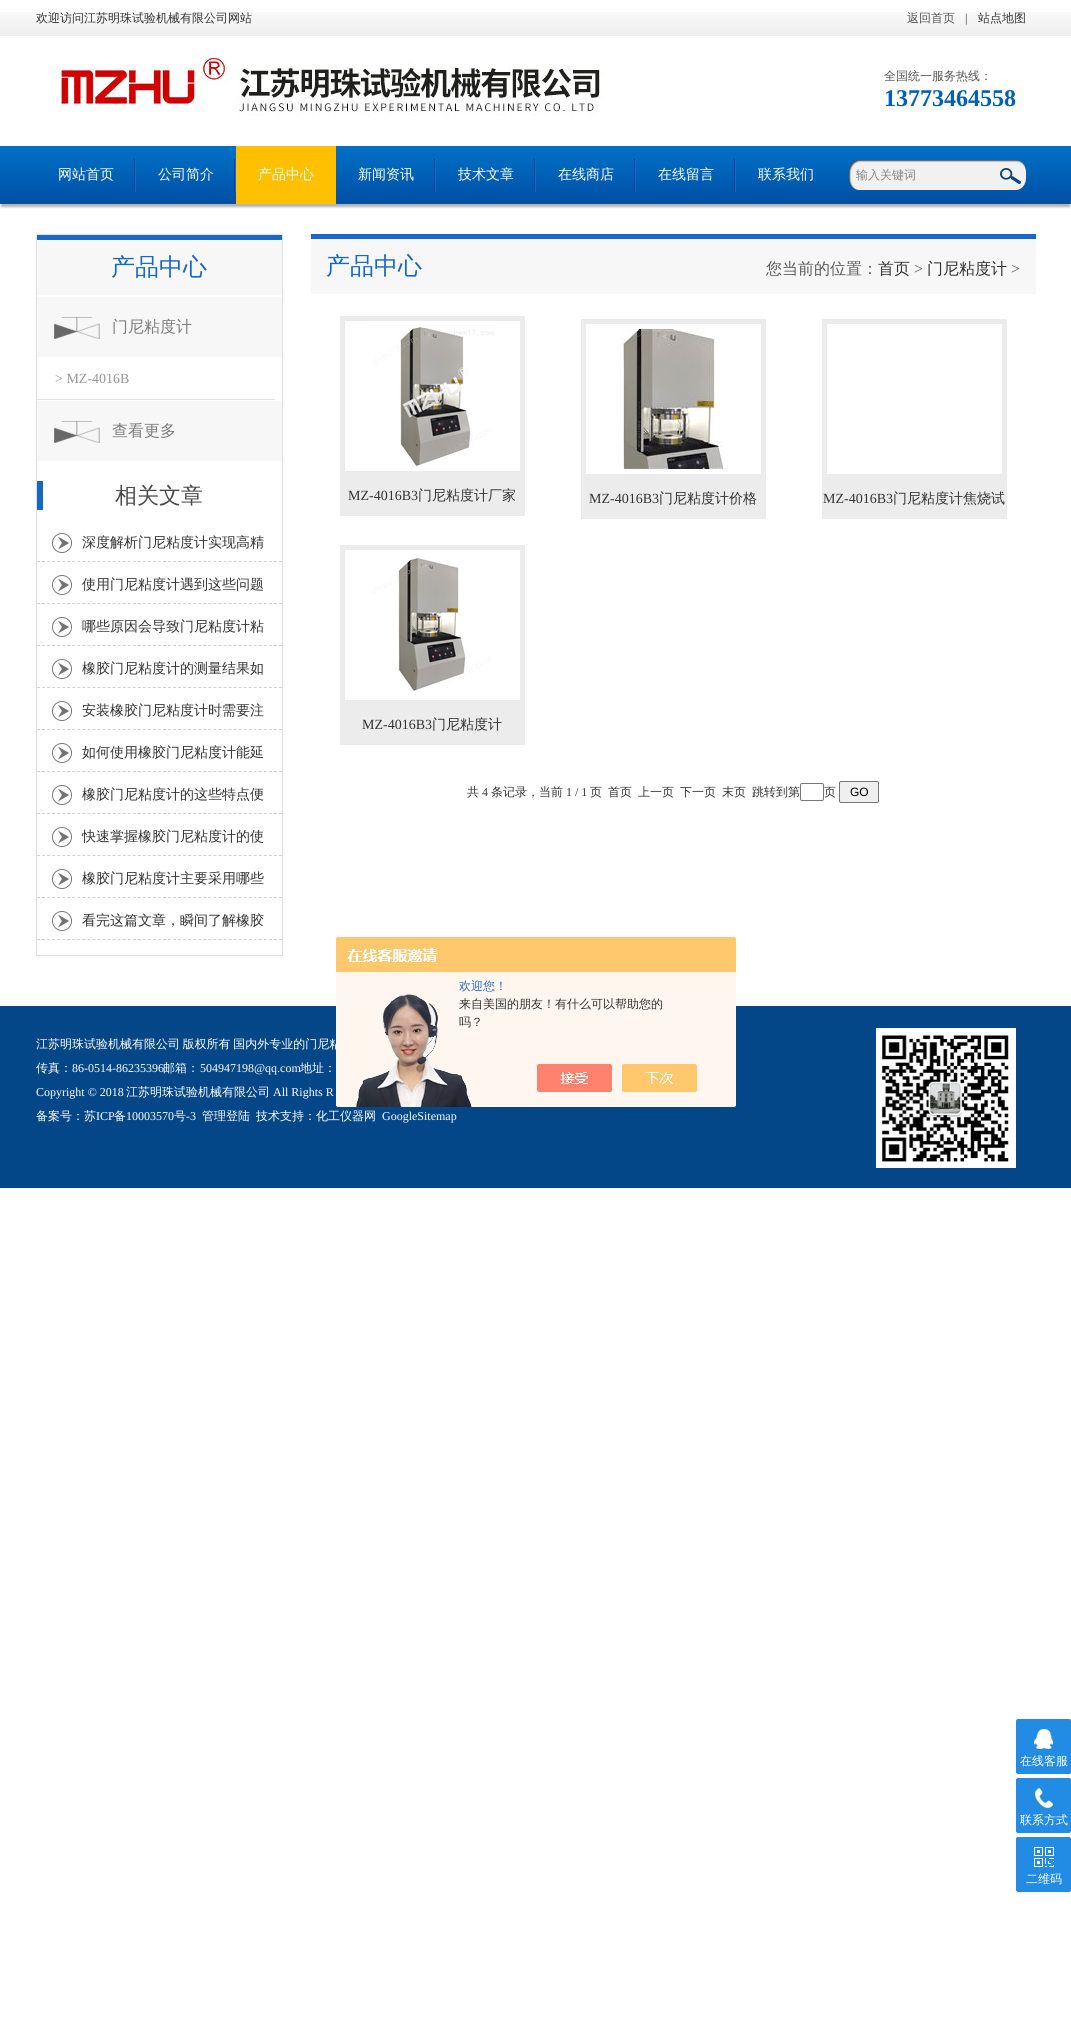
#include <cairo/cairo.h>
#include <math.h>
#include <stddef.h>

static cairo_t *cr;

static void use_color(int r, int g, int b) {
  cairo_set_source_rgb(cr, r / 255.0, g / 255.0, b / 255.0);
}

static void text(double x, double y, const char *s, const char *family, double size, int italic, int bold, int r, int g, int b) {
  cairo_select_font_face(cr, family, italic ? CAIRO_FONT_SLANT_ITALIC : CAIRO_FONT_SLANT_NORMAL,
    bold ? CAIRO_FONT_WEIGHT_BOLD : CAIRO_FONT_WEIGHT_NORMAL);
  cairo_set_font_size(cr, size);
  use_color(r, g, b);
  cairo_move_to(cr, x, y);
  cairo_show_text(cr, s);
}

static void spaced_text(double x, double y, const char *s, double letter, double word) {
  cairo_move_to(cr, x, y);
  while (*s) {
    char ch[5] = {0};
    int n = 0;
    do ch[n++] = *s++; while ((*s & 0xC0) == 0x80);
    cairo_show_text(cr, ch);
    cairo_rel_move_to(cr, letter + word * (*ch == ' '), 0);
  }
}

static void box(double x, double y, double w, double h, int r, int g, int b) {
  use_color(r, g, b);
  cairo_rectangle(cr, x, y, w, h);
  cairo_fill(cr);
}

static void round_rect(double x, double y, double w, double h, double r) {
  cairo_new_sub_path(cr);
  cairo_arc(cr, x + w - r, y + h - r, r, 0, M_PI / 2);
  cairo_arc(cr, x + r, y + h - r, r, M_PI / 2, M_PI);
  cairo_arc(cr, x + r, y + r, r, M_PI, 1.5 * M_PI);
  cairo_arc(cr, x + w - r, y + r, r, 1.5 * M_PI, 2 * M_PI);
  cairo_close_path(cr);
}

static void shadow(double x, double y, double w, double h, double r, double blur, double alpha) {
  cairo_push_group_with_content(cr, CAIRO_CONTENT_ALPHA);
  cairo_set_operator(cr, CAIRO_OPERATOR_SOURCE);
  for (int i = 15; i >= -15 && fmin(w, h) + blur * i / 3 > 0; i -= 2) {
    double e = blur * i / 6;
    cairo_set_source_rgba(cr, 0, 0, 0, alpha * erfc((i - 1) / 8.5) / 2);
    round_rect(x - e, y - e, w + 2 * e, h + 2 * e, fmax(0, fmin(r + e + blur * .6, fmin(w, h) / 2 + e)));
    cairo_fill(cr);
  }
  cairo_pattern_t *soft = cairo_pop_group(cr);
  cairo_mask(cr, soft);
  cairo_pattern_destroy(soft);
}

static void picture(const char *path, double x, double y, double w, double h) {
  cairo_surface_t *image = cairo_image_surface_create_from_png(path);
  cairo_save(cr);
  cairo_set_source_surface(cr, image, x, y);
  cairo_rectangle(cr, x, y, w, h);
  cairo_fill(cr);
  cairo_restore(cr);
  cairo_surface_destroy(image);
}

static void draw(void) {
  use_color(255, 255, 255);
  cairo_paint(cr);
  picture("img_01.png", 0, 12, 1071, 24);
  picture("img_02.png", 60, 52, 544, 64);
  use_color(0, 0, 0);
  shadow(1, 151, 1069, 56, 0, 1, 0.3);
  picture("img_03.png", 0, 146, 1071, 58);
  picture("img_04.png", 134, 159, 2, 33);
  picture("img_04.png", 234, 159, 2, 33);
  box(236, 146, 100, 58, 255, 192, 1);
  picture("img_04.png", 434, 159, 2, 33);
  picture("img_04.png", 534, 159, 2, 33);
  picture("img_04.png", 634, 159, 2, 33);
  picture("img_04.png", 734, 159, 2, 33);
  picture("img_05.png", 849, 160, 177, 30);
  picture("img_06.png", 1000, 168, 21, 16);
  cairo_rectangle(cr, 36.5, 234.5, 246, 721);
  use_color(225, 225, 225);
  cairo_set_line_width(cr, 1);
  cairo_stroke(cr);
  box(37, 240, 245, 55, 247, 247, 247);
  box(37, 235, 245, 5, 25, 103, 201);
  box(37, 297, 245, 60, 247, 247, 247);
  picture("img_07.png", 54, 317, 46, 22);
  box(37, 399, 238, 1, 224, 222, 222);
  box(37, 401, 245, 60, 247, 247, 247);
  picture("img_07.png", 54, 421, 46, 22);
  box(37, 481, 6, 29, 21, 104, 196);
  picture("img_08.png", 52, 533, 20, 20);
  cairo_new_path(cr);
  cairo_move_to(cr, 37, 561.5);
  cairo_line_to(cr, 282, 561.5);
  use_color(210, 210, 210);
  cairo_set_dash(cr, (double[]){3, 2.04}, 2, 0);
  cairo_stroke(cr);
  picture("img_08.png", 52, 575, 20, 20);
  cairo_new_path(cr);
  cairo_move_to(cr, 37, 603.5);
  cairo_line_to(cr, 282, 603.5);
  cairo_stroke(cr);
  picture("img_08.png", 52, 617, 20, 20);
  cairo_new_path(cr);
  cairo_move_to(cr, 37, 645.5);
  cairo_line_to(cr, 282, 645.5);
  cairo_stroke(cr);
  picture("img_08.png", 52, 659, 20, 20);
  cairo_new_path(cr);
  cairo_move_to(cr, 37, 687.5);
  cairo_line_to(cr, 282, 687.5);
  cairo_stroke(cr);
  picture("img_08.png", 52, 701, 20, 20);
  cairo_new_path(cr);
  cairo_move_to(cr, 37, 729.5);
  cairo_line_to(cr, 282, 729.5);
  cairo_stroke(cr);
  picture("img_08.png", 52, 743, 20, 20);
  cairo_new_path(cr);
  cairo_move_to(cr, 37, 771.5);
  cairo_line_to(cr, 282, 771.5);
  cairo_stroke(cr);
  picture("img_08.png", 52, 785, 20, 20);
  cairo_new_path(cr);
  cairo_move_to(cr, 37, 813.5);
  cairo_line_to(cr, 282, 813.5);
  cairo_stroke(cr);
  picture("img_08.png", 52, 827, 20, 20);
  cairo_new_path(cr);
  cairo_move_to(cr, 37, 855.5);
  cairo_line_to(cr, 282, 855.5);
  cairo_stroke(cr);
  picture("img_08.png", 52, 869, 20, 20);
  cairo_new_path(cr);
  cairo_move_to(cr, 37, 897.5);
  cairo_line_to(cr, 282, 897.5);
  cairo_stroke(cr);
  picture("img_08.png", 52, 911, 20, 20);
  cairo_new_path(cr);
  cairo_move_to(cr, 37, 939.5);
  cairo_line_to(cr, 282, 939.5);
  cairo_stroke(cr);
  box(311, 239, 725, 55, 247, 247, 247);
  box(311, 234, 725, 5, 25, 103, 201);
  cairo_rectangle(cr, 342.5, 318.5, 180, 155);
  use_color(236, 236, 236);
  cairo_set_line_width(cr, 5);
  cairo_set_dash(cr, NULL, 0, 0);
  cairo_stroke(cr);
  picture("img_09.png", 372, 326, 122, 140);
  box(340, 476, 185, 40, 236, 236, 236);
  cairo_rectangle(cr, 583.5, 321.5, 180, 155);
  cairo_stroke(cr);
  picture("img_10.png", 620, 329, 105, 140);
  box(581, 479, 185, 40, 236, 236, 236);
  cairo_rectangle(cr, 824.5, 321.5, 180, 155);
  cairo_stroke(cr);
  box(822, 479, 185, 40, 236, 236, 236);
  cairo_rectangle(cr, 342.5, 547.5, 180, 155);
  cairo_stroke(cr);
  picture("img_11.png", 372, 558, 120, 133);
  box(340, 705, 185, 40, 236, 236, 236);
  round_rect(800.5, 783.5, 23, 17, 1.5);
  use_color(118, 118, 118);
  cairo_set_line_width(cr, 1);
  cairo_stroke(cr);
  use_color(239, 239, 239);
  round_rect(839.5, 781.5, 39, 21, 1.5);
  cairo_fill_preserve(cr);
  use_color(118, 118, 118);
  cairo_stroke(cr);
  box(0, 1006, 1071, 182, 4, 71, 136);
  picture("img_12.png", 876, 1028, 140, 140);
  use_color(34, 140, 228);
  round_rect(1016, 1719, 55, 55, 2);
  cairo_fill(cr);
  picture("img_13.png", 1034, 1729, 19, 20);
  round_rect(1016, 1778, 55, 55, 2);
  cairo_fill(cr);
  picture("img_14.png", 1035, 1788, 18, 20);
  round_rect(1016, 1837, 55, 55, 2);
  cairo_fill(cr);
  picture("img_15.png", 1034, 1847, 20, 20);
  text(36, 22, "欢迎访问江苏明珠试验机械有限公司网站", "WenQuanYi Zen Hei Medium", 12, 0, 0, 51, 51, 51);
  text(907, 22, "返回首页", "WenQuanYi Zen Hei Medium", 12, 0, 0, 85, 85, 85);
  text(965, 22, "|", "Liberation Serif", 12, 0, 0, 51, 51, 51);
  text(978, 22, "站点地图", "WenQuanYi Zen Hei Medium", 12, 0, 0, 51, 51, 51);
  text(884, 80, "全国统一服务热线：", "WenQuanYi Zen Hei Medium", 12, 0, 0, 85, 85, 85);
  text(884, 106, "13773464558", "Liberation Serif", 24, 0, 1, 0, 96, 181);
  text(58, 179, "网站首页", "WenQuanYi Zen Hei Medium", 14, 0, 0, 255, 255, 255);
  text(158, 179, "公司简介", "WenQuanYi Zen Hei Medium", 14, 0, 0, 255, 255, 255);
  text(258, 179, "产品中心", "WenQuanYi Zen Hei Medium", 14, 0, 0, 255, 255, 255);
  text(358, 179, "新闻资讯", "WenQuanYi Zen Hei Medium", 14, 0, 0, 255, 255, 255);
  text(458, 179, "技术文章", "WenQuanYi Zen Hei Medium", 14, 0, 0, 255, 255, 255);
  text(558, 179, "在线商店", "WenQuanYi Zen Hei Medium", 14, 0, 0, 255, 255, 255);
  text(658, 179, "在线留言", "WenQuanYi Zen Hei Medium", 14, 0, 0, 255, 255, 255);
  text(758, 179, "联系我们", "WenQuanYi Zen Hei Medium", 14, 0, 0, 255, 255, 255);
  text(856, 179, "输入关键词", "WenQuanYi Zen Hei Medium", 12, 0, 0, 133, 133, 133);
  text(111, 275, "产品中心", "WenQuanYi Zen Hei Medium", 24, 0, 0, 21, 104, 197);
  text(112, 332, "门尼粘度计", "WenQuanYi Zen Hei Medium", 16, 0, 0, 125, 125, 125);
  text(55, 383, "> MZ-4016B", "Liberation Serif", 14, 0, 0, 153, 153, 153);
  text(112, 436, "查看更多", "WenQuanYi Zen Hei Medium", 16, 0, 0, 125, 125, 125);
  text(115, 503, "相关文章", "WenQuanYi Zen Hei Medium", 22, 0, 0, 73, 73, 73);
  text(82, 547, "深度解析门尼粘度计实现高精", "WenQuanYi Zen Hei Medium", 14, 0, 0, 51, 51, 51);
  text(82, 589, "使用门尼粘度计遇到这些问题", "WenQuanYi Zen Hei Medium", 14, 0, 0, 51, 51, 51);
  text(82, 631, "哪些原因会导致门尼粘度计粘", "WenQuanYi Zen Hei Medium", 14, 0, 0, 51, 51, 51);
  text(82, 673, "橡胶门尼粘度计的测量结果如", "WenQuanYi Zen Hei Medium", 14, 0, 0, 51, 51, 51);
  text(82, 715, "安装橡胶门尼粘度计时需要注", "WenQuanYi Zen Hei Medium", 14, 0, 0, 51, 51, 51);
  text(82, 757, "如何使用橡胶门尼粘度计能延", "WenQuanYi Zen Hei Medium", 14, 0, 0, 51, 51, 51);
  text(82, 799, "橡胶门尼粘度计的这些特点便", "WenQuanYi Zen Hei Medium", 14, 0, 0, 51, 51, 51);
  text(82, 841, "快速掌握橡胶门尼粘度计的使", "WenQuanYi Zen Hei Medium", 14, 0, 0, 51, 51, 51);
  text(82, 883, "橡胶门尼粘度计主要采用哪些", "WenQuanYi Zen Hei Medium", 14, 0, 0, 51, 51, 51);
  text(82, 925, "看完这篇文章，瞬间了解橡胶", "WenQuanYi Zen Hei Medium", 14, 0, 0, 51, 51, 51);
  text(326, 274, "产品中心", "WenQuanYi Zen Hei Medium", 24, 0, 0, 21, 104, 197);
  text(766, 274, "您当前的位置：", "WenQuanYi Zen Hei Medium", 16, 0, 0, 92, 92, 92);
  text(878, 274, "首页", "WenQuanYi Zen Hei Medium", 16, 0, 0, 51, 51, 51);
  text(914, 274, ">", "Liberation Serif", 16, 0, 0, 92, 92, 92);
  text(927, 274, "门尼粘度计", "WenQuanYi Zen Hei Medium", 16, 0, 0, 51, 51, 51);
  text(1011, 274, ">", "Liberation Serif", 16, 0, 0, 92, 92, 92);
  text(348, 500, "MZ-4016B3", "Liberation Serif", 14, 0, 0, 51, 51, 51);
  text(418, 500, "门尼粘度计厂家", "WenQuanYi Zen Hei Medium", 14, 0, 0, 51, 51, 51);
  text(589, 503, "MZ-4016B3", "Liberation Serif", 14, 0, 0, 51, 51, 51);
  text(659, 503, "门尼粘度计价格", "WenQuanYi Zen Hei Medium", 14, 0, 0, 51, 51, 51);
  text(823, 503, "MZ-4016B3", "Liberation Serif", 14, 0, 0, 51, 51, 51);
  text(893, 503, "门尼粘度计焦烧试", "WenQuanYi Zen Hei Medium", 14, 0, 0, 51, 51, 51);
  text(362, 729, "MZ-4016B3", "Liberation Serif", 14, 0, 0, 51, 51, 51);
  text(432, 729, "门尼粘度计", "WenQuanYi Zen Hei Medium", 14, 0, 0, 51, 51, 51);
  text(467, 796, "共", "WenQuanYi Zen Hei Medium", 12, 0, 0, 51, 51, 51);
  text(482, 796, "4", "Liberation Serif", 12, 0, 0, 51, 51, 51);
  text(491, 796, "条记录，当前", "WenQuanYi Zen Hei Medium", 12, 0, 0, 51, 51, 51);
  text(566, 796, "1 / 1", "Liberation Serif", 12, 0, 0, 51, 51, 51);
  text(590, 796, "页", "WenQuanYi Zen Hei Medium", 12, 0, 0, 51, 51, 51);
  text(608, 796, "首页", "WenQuanYi Zen Hei Medium", 12, 0, 0, 51, 51, 51);
  text(638, 796, "上一页", "WenQuanYi Zen Hei Medium", 12, 0, 0, 51, 51, 51);
  text(680, 796, "下一页", "WenQuanYi Zen Hei Medium", 12, 0, 0, 51, 51, 51);
  text(722, 796, "末页", "WenQuanYi Zen Hei Medium", 12, 0, 0, 51, 51, 51);
  text(752, 796, "跳转到第", "WenQuanYi Zen Hei Medium", 12, 0, 0, 51, 51, 51);
  text(824, 796, "页", "WenQuanYi Zen Hei Medium", 12, 0, 0, 51, 51, 51);
  text(850, 796, "GO", "Liberation Sans", 12, 0, 0, 0, 0, 0);
  cairo_select_font_face(cr, "WenQuanYi Zen Hei Medium", CAIRO_FONT_SLANT_NORMAL, CAIRO_FONT_WEIGHT_NORMAL);
  use_color(255, 255, 255);
  spaced_text(36, 1048, "江苏明珠试验机械有限公司 版权所有 国内外专业的门尼粘", 0, -1);
  text(36, 1072, "传真：", "WenQuanYi Zen Hei Medium", 12, 0, 0, 255, 255, 255);
  text(72, 1072, "86-0514-86235396", "Liberation Serif", 12, 0, 0, 255, 255, 255);
  text(163, 1072, "邮箱：", "WenQuanYi Zen Hei Medium", 12, 0, 0, 255, 255, 255);
  text(200, 1072, "504947198@qq.com", "Liberation Serif", 12, 0, 0, 255, 255, 255);
  text(300, 1072, "地址：", "WenQuanYi Zen Hei Medium", 12, 0, 0, 255, 255, 255);
  text(36, 1096, "Copyright © 2018", "Liberation Serif", 12, 0, 0, 255, 255, 255);
  text(126, 1096, "江苏明珠试验机械有限公司", "WenQuanYi Zen Hei Medium", 12, 0, 0, 255, 255, 255);
  text(273, 1096, "All Rights R", "Liberation Serif", 12, 0, 0, 255, 255, 255);
  text(36, 1120, "备案号：苏", "WenQuanYi Zen Hei Medium", 12, 0, 0, 255, 255, 255);
  text(96, 1120, "ICP", "Liberation Serif", 12, 0, 0, 255, 255, 255);
  text(114, 1120, "备", "WenQuanYi Zen Hei Medium", 12, 0, 0, 255, 255, 255);
  text(126, 1120, "10003570", "Liberation Serif", 12, 0, 0, 255, 255, 255);
  text(174, 1120, "号", "WenQuanYi Zen Hei Medium", 12, 0, 0, 255, 255, 255);
  text(186, 1120, "-3", "Liberation Serif", 12, 0, 0, 255, 255, 255);
  text(202, 1120, "管理登陆", "WenQuanYi Zen Hei Medium", 12, 0, 0, 255, 255, 255);
  text(256, 1120, "技术支持：化工仪器网", "WenQuanYi Zen Hei Medium", 12, 0, 0, 255, 255, 255);
  text(382, 1120, "GoogleSitemap", "Liberation Serif", 12, 0, 0, 255, 255, 255);
  text(1020, 1765, "在线客服", "WenQuanYi Zen Hei Medium", 12, 0, 0, 255, 255, 255);
  text(1020, 1824, "联系方式", "WenQuanYi Zen Hei Medium", 12, 0, 0, 255, 255, 255);
  text(1026, 1883, "二维码", "WenQuanYi Zen Hei Medium", 12, 0, 0, 255, 255, 255);
  picture("img_16.png", 336, 937, 400, 170);
  text(459, 990, "欢迎您！", "WenQuanYi Zen Hei Medium", 12, 0, 0, 46, 110, 198);
  text(459, 1008, "来自美国的朋友！有什么可以帮助您的", "WenQuanYi Zen Hei Medium", 12, 0, 0, 51, 51, 51);
  text(459, 1026, "吗？", "WenQuanYi Zen Hei Medium", 12, 0, 0, 51, 51, 51);
}

int main(void) {
  cairo_surface_t *surface = cairo_image_surface_create(CAIRO_FORMAT_RGB24, 1071, 2044);
  cr = cairo_create(surface);
  cairo_font_options_t *options = cairo_font_options_create();
  cairo_font_options_set_hint_metrics(options, CAIRO_HINT_METRICS_OFF);
  cairo_font_options_set_hint_style(options, CAIRO_HINT_STYLE_NONE);
  cairo_set_font_options(cr, options);
  cairo_set_miter_limit(cr, 4);
  draw();
  cairo_surface_write_to_png(surface, "out.png");
  cairo_font_options_destroy(options);
  cairo_destroy(cr);
  cairo_surface_destroy(surface);
  return 0;
}
